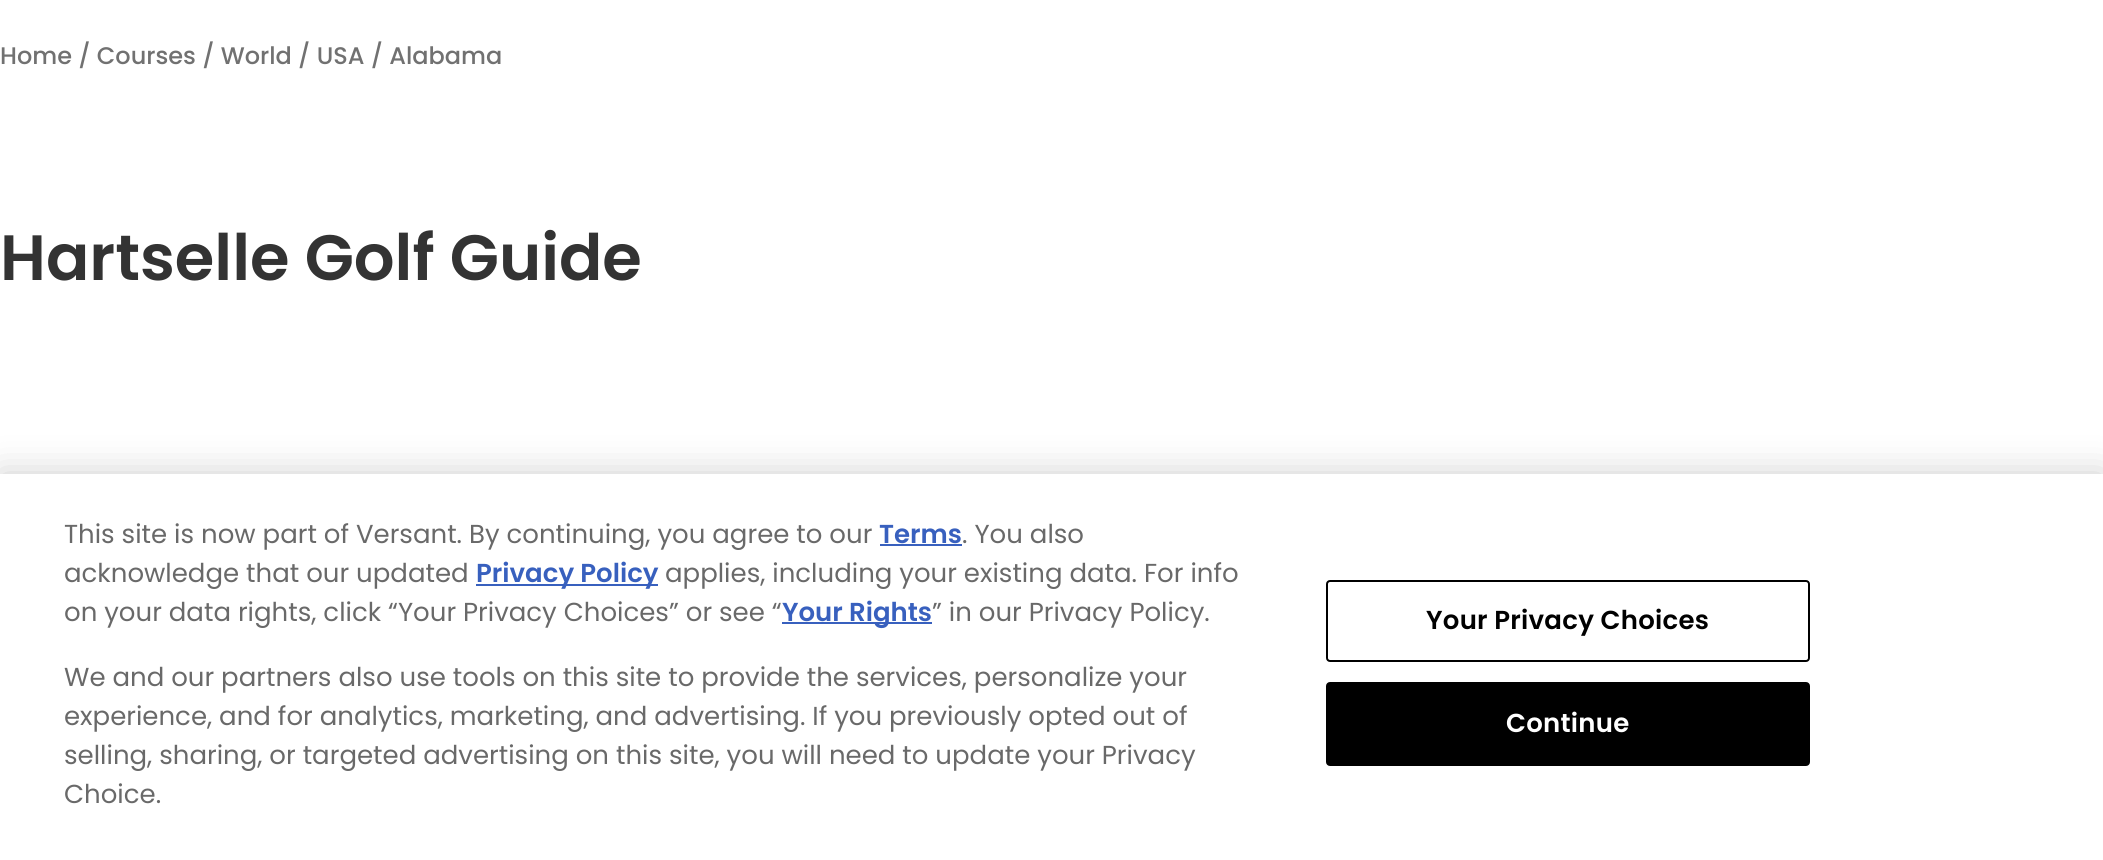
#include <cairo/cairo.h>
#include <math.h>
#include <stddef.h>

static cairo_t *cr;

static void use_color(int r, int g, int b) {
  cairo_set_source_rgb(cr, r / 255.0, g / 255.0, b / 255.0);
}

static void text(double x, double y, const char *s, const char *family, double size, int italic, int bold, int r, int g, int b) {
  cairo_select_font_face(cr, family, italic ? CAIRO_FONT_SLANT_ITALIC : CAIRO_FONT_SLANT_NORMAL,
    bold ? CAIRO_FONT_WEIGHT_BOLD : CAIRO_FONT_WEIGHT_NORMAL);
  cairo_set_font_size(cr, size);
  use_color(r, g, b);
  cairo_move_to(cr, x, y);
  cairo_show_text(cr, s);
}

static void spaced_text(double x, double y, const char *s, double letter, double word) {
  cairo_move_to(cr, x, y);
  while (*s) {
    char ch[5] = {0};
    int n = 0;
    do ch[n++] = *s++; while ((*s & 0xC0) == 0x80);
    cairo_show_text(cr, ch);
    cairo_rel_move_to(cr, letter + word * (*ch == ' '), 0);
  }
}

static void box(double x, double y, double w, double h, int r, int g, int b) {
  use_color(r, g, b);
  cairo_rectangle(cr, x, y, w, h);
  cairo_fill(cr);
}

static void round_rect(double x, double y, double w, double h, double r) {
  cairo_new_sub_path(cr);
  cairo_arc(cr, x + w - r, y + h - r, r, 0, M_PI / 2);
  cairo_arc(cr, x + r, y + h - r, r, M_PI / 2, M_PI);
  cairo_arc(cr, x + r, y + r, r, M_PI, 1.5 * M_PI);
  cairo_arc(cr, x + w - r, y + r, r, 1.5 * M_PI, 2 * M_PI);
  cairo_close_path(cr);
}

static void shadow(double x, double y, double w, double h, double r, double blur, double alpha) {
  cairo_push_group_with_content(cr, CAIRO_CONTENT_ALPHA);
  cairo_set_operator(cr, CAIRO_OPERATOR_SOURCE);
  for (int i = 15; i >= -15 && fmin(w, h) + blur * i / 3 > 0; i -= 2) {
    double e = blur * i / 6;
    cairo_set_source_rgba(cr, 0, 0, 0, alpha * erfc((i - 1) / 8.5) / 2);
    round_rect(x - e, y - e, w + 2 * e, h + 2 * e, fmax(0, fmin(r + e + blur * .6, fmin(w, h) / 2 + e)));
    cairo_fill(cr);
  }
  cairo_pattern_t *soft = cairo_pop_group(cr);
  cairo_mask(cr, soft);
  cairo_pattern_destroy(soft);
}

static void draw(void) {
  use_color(255, 255, 255);
  cairo_paint(cr);
  use_color(0, 0, 0);
  shadow(0, 474, 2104, 386, 0, 18, 0.2);
  box(0, 474, 2103, 386, 255, 255, 255);
  box(880, 544, 82, 2, 56, 96, 190);
  box(476, 584, 182, 2, 56, 96, 190);
  box(782, 622, 150, 2, 56, 96, 190);
  round_rect(1327, 581, 482, 80, 3);
  use_color(0, 0, 0);
  cairo_stroke(cr);
  round_rect(1327, 683, 482, 82, 3);
  cairo_fill_preserve(cr);
  cairo_stroke(cr);
  text(0, 64, "Home / Courses / World / USA / Alabama", "Poppins Medium", 24, 0, 0, 113, 113, 113);
  text(0, 280, "Hartselle Golf Guide", "Poppins SemiBold", 64, 0, 0, 51, 51, 51);
  text(64, 543, "This site is now part of Versant. By continuing, you agree to our", "Poppins", 26, 0, 0, 105, 105, 105);
  text(879, 543, "Terms", "Poppins SemiBold", 26, 0, 0, 56, 96, 190);
  text(962, 543, ". You also", "Poppins", 26, 0, 0, 105, 105, 105);
  text(64, 582, "acknowledge that our updated", "Poppins", 26, 0, 0, 105, 105, 105);
  text(476, 582, "Privacy Policy", "Poppins SemiBold", 26, 0, 0, 56, 96, 190);
  text(665, 582, "applies, including your existing data. For info", "Poppins", 26, 0, 0, 105, 105, 105);
  text(64, 621, "on your data rights, click “Your Privacy Choices” or see “", "Poppins", 26, 0, 0, 105, 105, 105);
  text(782, 621, "Your Rights", "Poppins SemiBold", 26, 0, 0, 56, 96, 190);
  text(932, 621, "” in our Privacy Policy.", "Poppins", 26, 0, 0, 105, 105, 105);
  text(64, 686, "We and our partners also use tools on this site to provide the services, personalize your", "Poppins", 26, 0, 0, 105, 105, 105);
  text(64, 725, "experience, and for analytics, marketing, and advertising. If you previously opted out of", "Poppins", 26, 0, 0, 105, 105, 105);
  text(64, 764, "selling, sharing, or targeted advertising on this site, you will need to update your Privacy", "Poppins", 26, 0, 0, 105, 105, 105);
  text(64, 803, "Choice.", "Poppins", 26, 0, 0, 105, 105, 105);
  cairo_select_font_face(cr, "Poppins SemiBold", CAIRO_FONT_SLANT_NORMAL, CAIRO_FONT_WEIGHT_NORMAL);
  use_color(0, 0, 0);
  spaced_text(1426, 629, "Your Privacy Choices", 0.25, 0);
  use_color(255, 255, 255);
  spaced_text(1506, 732, "Continue", 0.25, 0);
}

int main(void) {
  cairo_surface_t *surface = cairo_image_surface_create(CAIRO_FORMAT_RGB24, 2103, 860);
  cr = cairo_create(surface);
  cairo_font_options_t *options = cairo_font_options_create();
  cairo_font_options_set_hint_metrics(options, CAIRO_HINT_METRICS_OFF);
  cairo_font_options_set_hint_style(options, CAIRO_HINT_STYLE_NONE);
  cairo_set_font_options(cr, options);
  cairo_set_miter_limit(cr, 4);
  draw();
  cairo_surface_write_to_png(surface, "out.png");
  cairo_font_options_destroy(options);
  cairo_destroy(cr);
  cairo_surface_destroy(surface);
  return 0;
}
